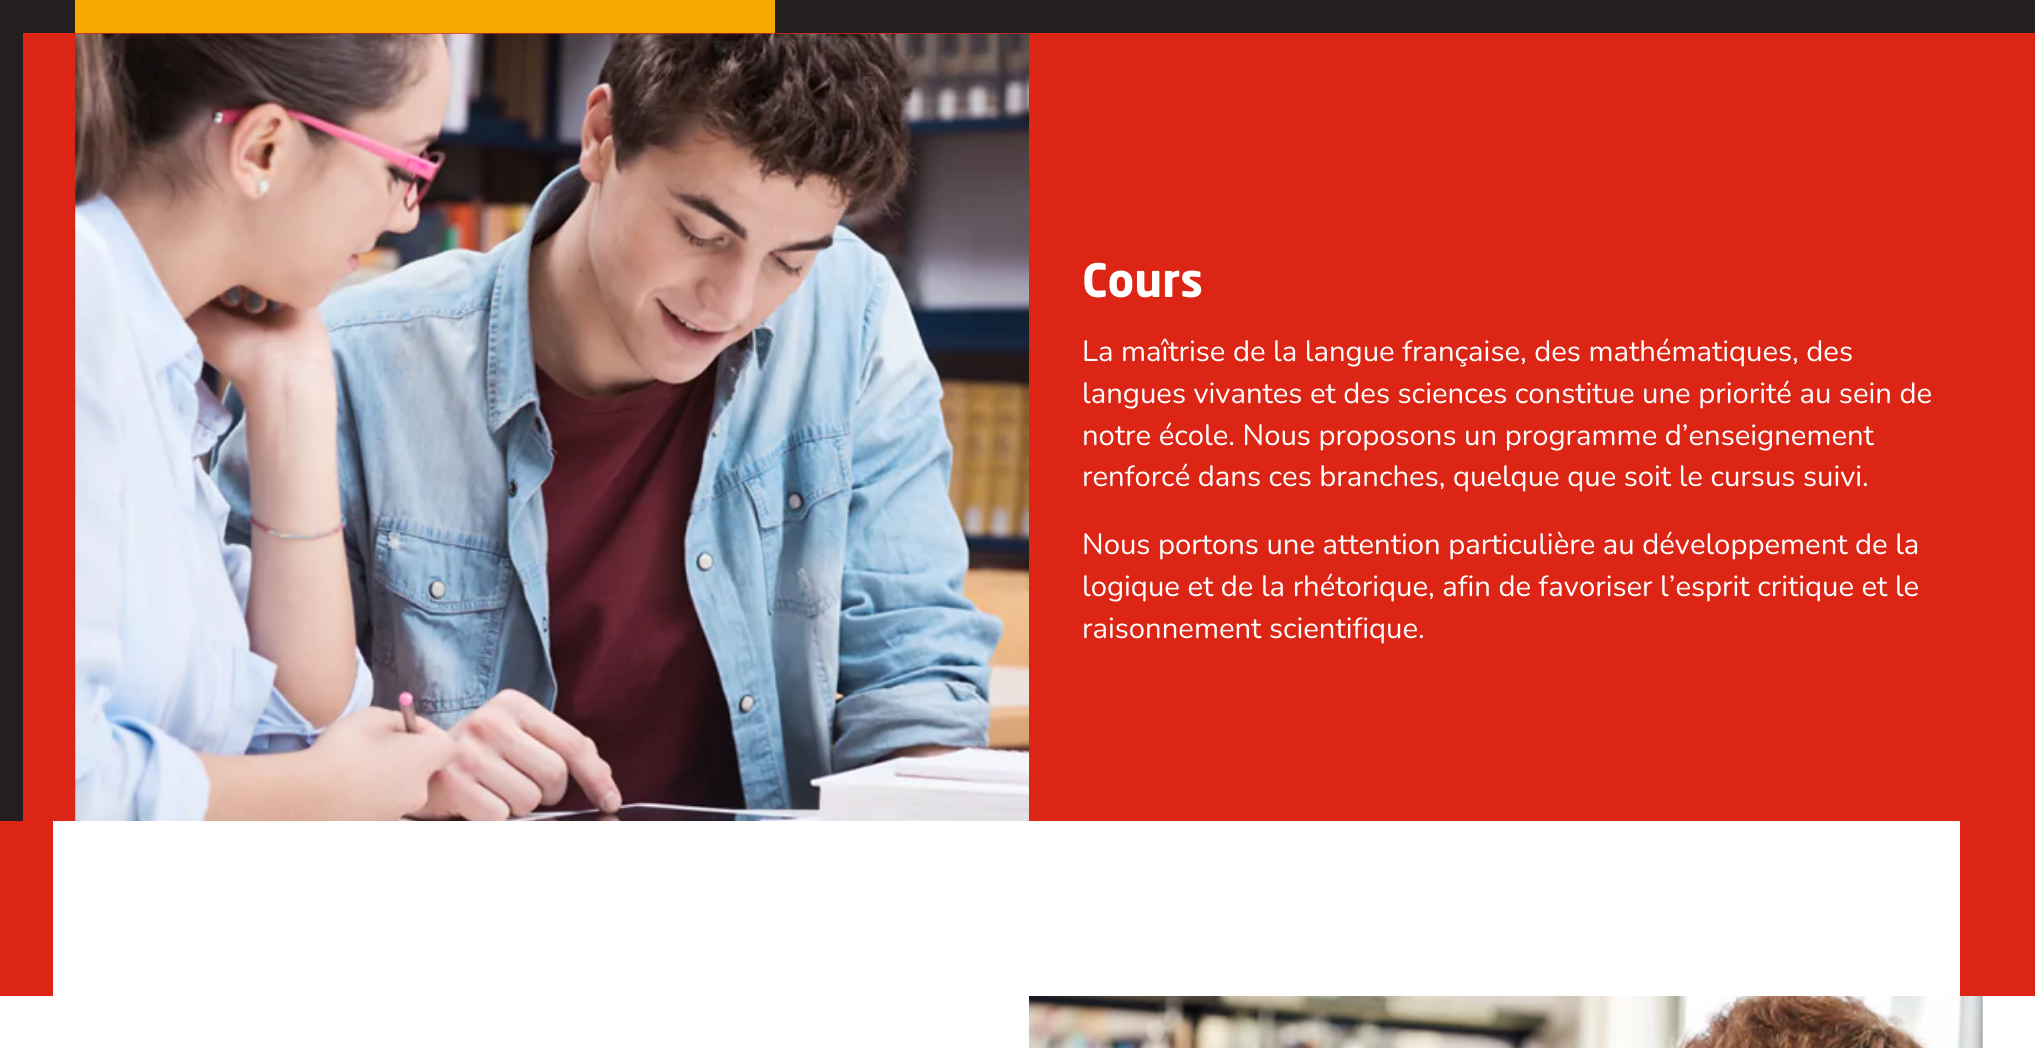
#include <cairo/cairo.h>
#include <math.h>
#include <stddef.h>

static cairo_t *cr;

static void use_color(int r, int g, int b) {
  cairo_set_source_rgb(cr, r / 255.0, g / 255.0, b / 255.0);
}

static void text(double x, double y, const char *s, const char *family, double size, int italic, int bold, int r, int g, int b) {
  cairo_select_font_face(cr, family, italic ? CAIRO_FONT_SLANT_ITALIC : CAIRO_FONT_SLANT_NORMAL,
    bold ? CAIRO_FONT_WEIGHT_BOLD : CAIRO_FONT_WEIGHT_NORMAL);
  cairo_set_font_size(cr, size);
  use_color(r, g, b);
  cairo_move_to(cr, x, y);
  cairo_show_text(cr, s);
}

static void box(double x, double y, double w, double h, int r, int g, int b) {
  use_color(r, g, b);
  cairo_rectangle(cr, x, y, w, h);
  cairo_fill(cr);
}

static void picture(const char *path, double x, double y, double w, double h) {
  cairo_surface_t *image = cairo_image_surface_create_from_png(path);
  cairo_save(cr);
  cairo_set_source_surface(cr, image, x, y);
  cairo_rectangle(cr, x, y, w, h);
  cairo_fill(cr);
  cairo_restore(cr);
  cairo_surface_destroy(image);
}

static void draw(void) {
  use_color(35, 31, 32);
  cairo_paint(cr);
  box(75, 0, 700, 33, 248, 169, 0);
  box(23, 33, 2012, 788, 221, 37, 21);
  picture("img_01.png", 75, 33, 954, 788);
  box(0, 821, 2035, 175, 221, 37, 21);
  box(53, 821, 1907, 175, 255, 255, 255);
  box(0, 996, 2035, 52, 255, 255, 255);
  picture("img_02.png", 1029, 996, 954, 52);
  text(1082, 297, "Cours", "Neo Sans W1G", 45.5, 0, 1, 255, 255, 255);
  text(1082, 361, "La maîtrise de la langue française, des mathématiques, des", "Nunito", 29.25, 0, 0, 255, 255, 255);
  text(1082, 403, "langues vivantes et des sciences constitue une priorité au sein de", "Nunito", 29.25, 0, 0, 255, 255, 255);
  text(1082, 445, "notre école. Nous proposons un programme d’enseignement", "Nunito", 29.25, 0, 0, 255, 255, 255);
  text(1082, 486, "renforcé dans ces branches, quelque que soit le cursus suivi.", "Nunito", 29.25, 0, 0, 255, 255, 255);
  text(1082, 554, "Nous portons une attention particulière au développement de la", "Nunito", 29.25, 0, 0, 255, 255, 255);
  text(1082, 596, "logique et de la rhétorique, afin de favoriser l’esprit critique et le", "Nunito", 29.25, 0, 0, 255, 255, 255);
  text(1082, 638, "raisonnement scientifique.", "Nunito", 29.25, 0, 0, 255, 255, 255);
}

int main(void) {
  cairo_surface_t *surface = cairo_image_surface_create(CAIRO_FORMAT_RGB24, 2035, 1048);
  cr = cairo_create(surface);
  cairo_font_options_t *options = cairo_font_options_create();
  cairo_font_options_set_hint_metrics(options, CAIRO_HINT_METRICS_OFF);
  cairo_font_options_set_hint_style(options, CAIRO_HINT_STYLE_NONE);
  cairo_set_font_options(cr, options);
  cairo_set_miter_limit(cr, 4);
  draw();
  cairo_surface_write_to_png(surface, "out.png");
  cairo_font_options_destroy(options);
  cairo_destroy(cr);
  cairo_surface_destroy(surface);
  return 0;
}
